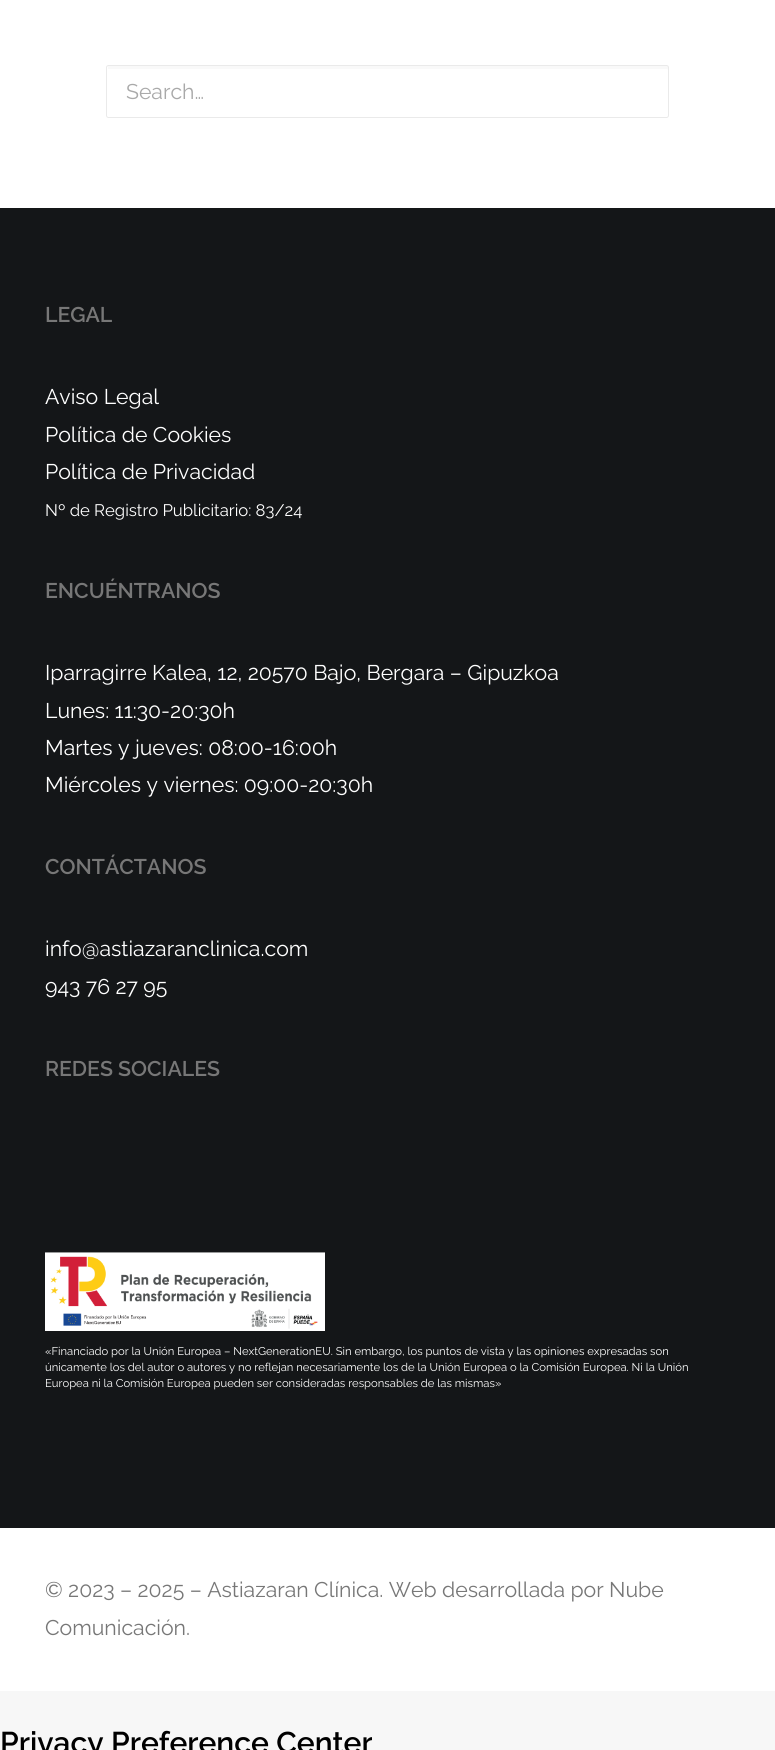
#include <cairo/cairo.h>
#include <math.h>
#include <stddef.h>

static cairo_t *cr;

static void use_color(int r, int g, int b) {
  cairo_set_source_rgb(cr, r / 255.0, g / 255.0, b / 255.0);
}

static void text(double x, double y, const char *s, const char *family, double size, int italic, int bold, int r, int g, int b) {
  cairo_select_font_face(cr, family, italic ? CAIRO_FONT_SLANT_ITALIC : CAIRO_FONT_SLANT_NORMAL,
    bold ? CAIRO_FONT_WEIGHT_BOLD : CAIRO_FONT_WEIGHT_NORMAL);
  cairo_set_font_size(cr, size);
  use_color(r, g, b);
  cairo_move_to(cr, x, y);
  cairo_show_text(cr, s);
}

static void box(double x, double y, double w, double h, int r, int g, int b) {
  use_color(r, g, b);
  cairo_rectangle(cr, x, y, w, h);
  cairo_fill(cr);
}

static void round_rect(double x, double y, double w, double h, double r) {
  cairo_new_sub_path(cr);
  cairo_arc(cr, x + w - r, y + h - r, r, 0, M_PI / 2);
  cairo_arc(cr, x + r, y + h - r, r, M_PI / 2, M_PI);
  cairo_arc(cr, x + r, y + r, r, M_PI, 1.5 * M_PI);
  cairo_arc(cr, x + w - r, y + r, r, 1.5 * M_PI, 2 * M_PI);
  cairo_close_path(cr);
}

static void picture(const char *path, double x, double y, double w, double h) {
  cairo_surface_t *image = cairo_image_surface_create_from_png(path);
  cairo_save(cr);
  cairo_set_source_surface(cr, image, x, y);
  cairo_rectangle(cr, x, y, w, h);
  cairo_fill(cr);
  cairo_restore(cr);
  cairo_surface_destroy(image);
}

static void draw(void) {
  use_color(247, 247, 247);
  cairo_paint(cr);
  box(0, 0, 775, 208, 255, 255, 255);
  use_color(249, 249, 249);
  cairo_new_path(cr);
  cairo_move_to(cr, 109, 69);
  cairo_line_to(cr, 666, 69);
  cairo_curve_to(cr, 667, 69, 668, 69, 668, 70);
  cairo_curve_to(cr, 668, 69, 669, 66, 667, 66);
  cairo_line_to(cr, 108, 66);
  cairo_line_to(cr, 108, 70);
  cairo_curve_to(cr, 108, 69, 108, 69, 109, 69);
  cairo_close_path(cr);
  cairo_fill(cr);
  round_rect(106.5, 65.5, 562, 52, 2);
  use_color(234, 234, 234);
  cairo_set_line_width(cr, 1);
  cairo_stroke(cr);
  box(0, 208, 775, 1320, 20, 22, 24);
  picture("img_01.png", 45, 1252, 280, 79);
  box(0, 1528, 775, 163, 255, 255, 255);
  text(126, 99, "Search…", "Raleway", 21.25, 0, 0, 169, 169, 169);
  text(45, 322, "LEGAL", "Raleway SemiBold", 21.25, 0, 0, 119, 119, 119);
  text(45, 404, "Aviso Legal", "Raleway", 21.25, 0, 0, 255, 255, 255);
  text(45, 442, "Política de Cookies", "Raleway", 21.25, 0, 0, 255, 255, 255);
  text(45, 479, "Política de Privacidad", "Raleway", 21.25, 0, 0, 255, 255, 255);
  text(45, 516, "Nº de Registro Publicitario: 83/24", "Raleway", 16.7, 0, 0, 255, 255, 255);
  text(45, 598, "ENCUÉNTRANOS", "Raleway SemiBold", 21.25, 0, 0, 119, 119, 119);
  text(45, 680, "Iparragirre Kalea, 12, 20570 Bajo, Bergara – Gipuzkoa", "Raleway", 21.25, 0, 0, 255, 255, 255);
  text(45, 718, "Lunes: 11:30-20:30h", "Raleway", 21.25, 0, 0, 255, 255, 255);
  text(45, 755, "Martes y jueves: 08:00-16:00h", "Raleway", 21.25, 0, 0, 255, 255, 255);
  text(45, 792, "Miércoles y viernes: 09:00-20:30h", "Raleway", 21.25, 0, 0, 255, 255, 255);
  text(45, 874, "CONTÁCTANOS", "Raleway SemiBold", 21.25, 0, 0, 119, 119, 119);
  text(45, 956, "info@astiazaranclinica.com", "Raleway", 21.25, 0, 0, 255, 255, 255);
  text(45, 994, "943 76 27 95", "Raleway", 21.25, 0, 0, 255, 255, 255);
  text(45, 1076, "REDES SOCIALES", "Raleway SemiBold", 21.25, 0, 0, 119, 119, 119);
  text(45, 1355, "«Financiado por la Unión Europea – NextGenerationEU. Sin embargo, los puntos de vista y las opiniones expresadas son", "Raleway", 11.25, 0, 0, 255, 255, 255);
  text(45, 1371, "únicamente los del autor o autores y no reflejan necesariamente los de la Unión Europea o la Comisión Europea. Ni la Unión", "Raleway", 11.25, 0, 0, 255, 255, 255);
  text(45, 1387, "Europea ni la Comisión Europea pueden ser consideradas responsables de las mismas»", "Raleway", 11.25, 0, 0, 255, 255, 255);
  text(45, 1597, "© 2023 – 2025 – Astiazaran Clínica. Web desarrollada por Nube", "Raleway", 21.25, 0, 0, 119, 119, 119);
  text(45, 1635, "Comunicación.", "Raleway", 21.25, 0, 0, 119, 119, 119);
  text(0, 1753, "Privacy Preference Center", "Raleway SemiBold", 30, 0, 0, 0, 0, 0);
}

int main(void) {
  cairo_surface_t *surface = cairo_image_surface_create(CAIRO_FORMAT_RGB24, 775, 1750);
  cr = cairo_create(surface);
  cairo_font_options_t *options = cairo_font_options_create();
  cairo_font_options_set_hint_metrics(options, CAIRO_HINT_METRICS_OFF);
  cairo_font_options_set_hint_style(options, CAIRO_HINT_STYLE_NONE);
  cairo_set_font_options(cr, options);
  cairo_set_miter_limit(cr, 4);
  draw();
  cairo_surface_write_to_png(surface, "out.png");
  cairo_font_options_destroy(options);
  cairo_destroy(cr);
  cairo_surface_destroy(surface);
  return 0;
}
